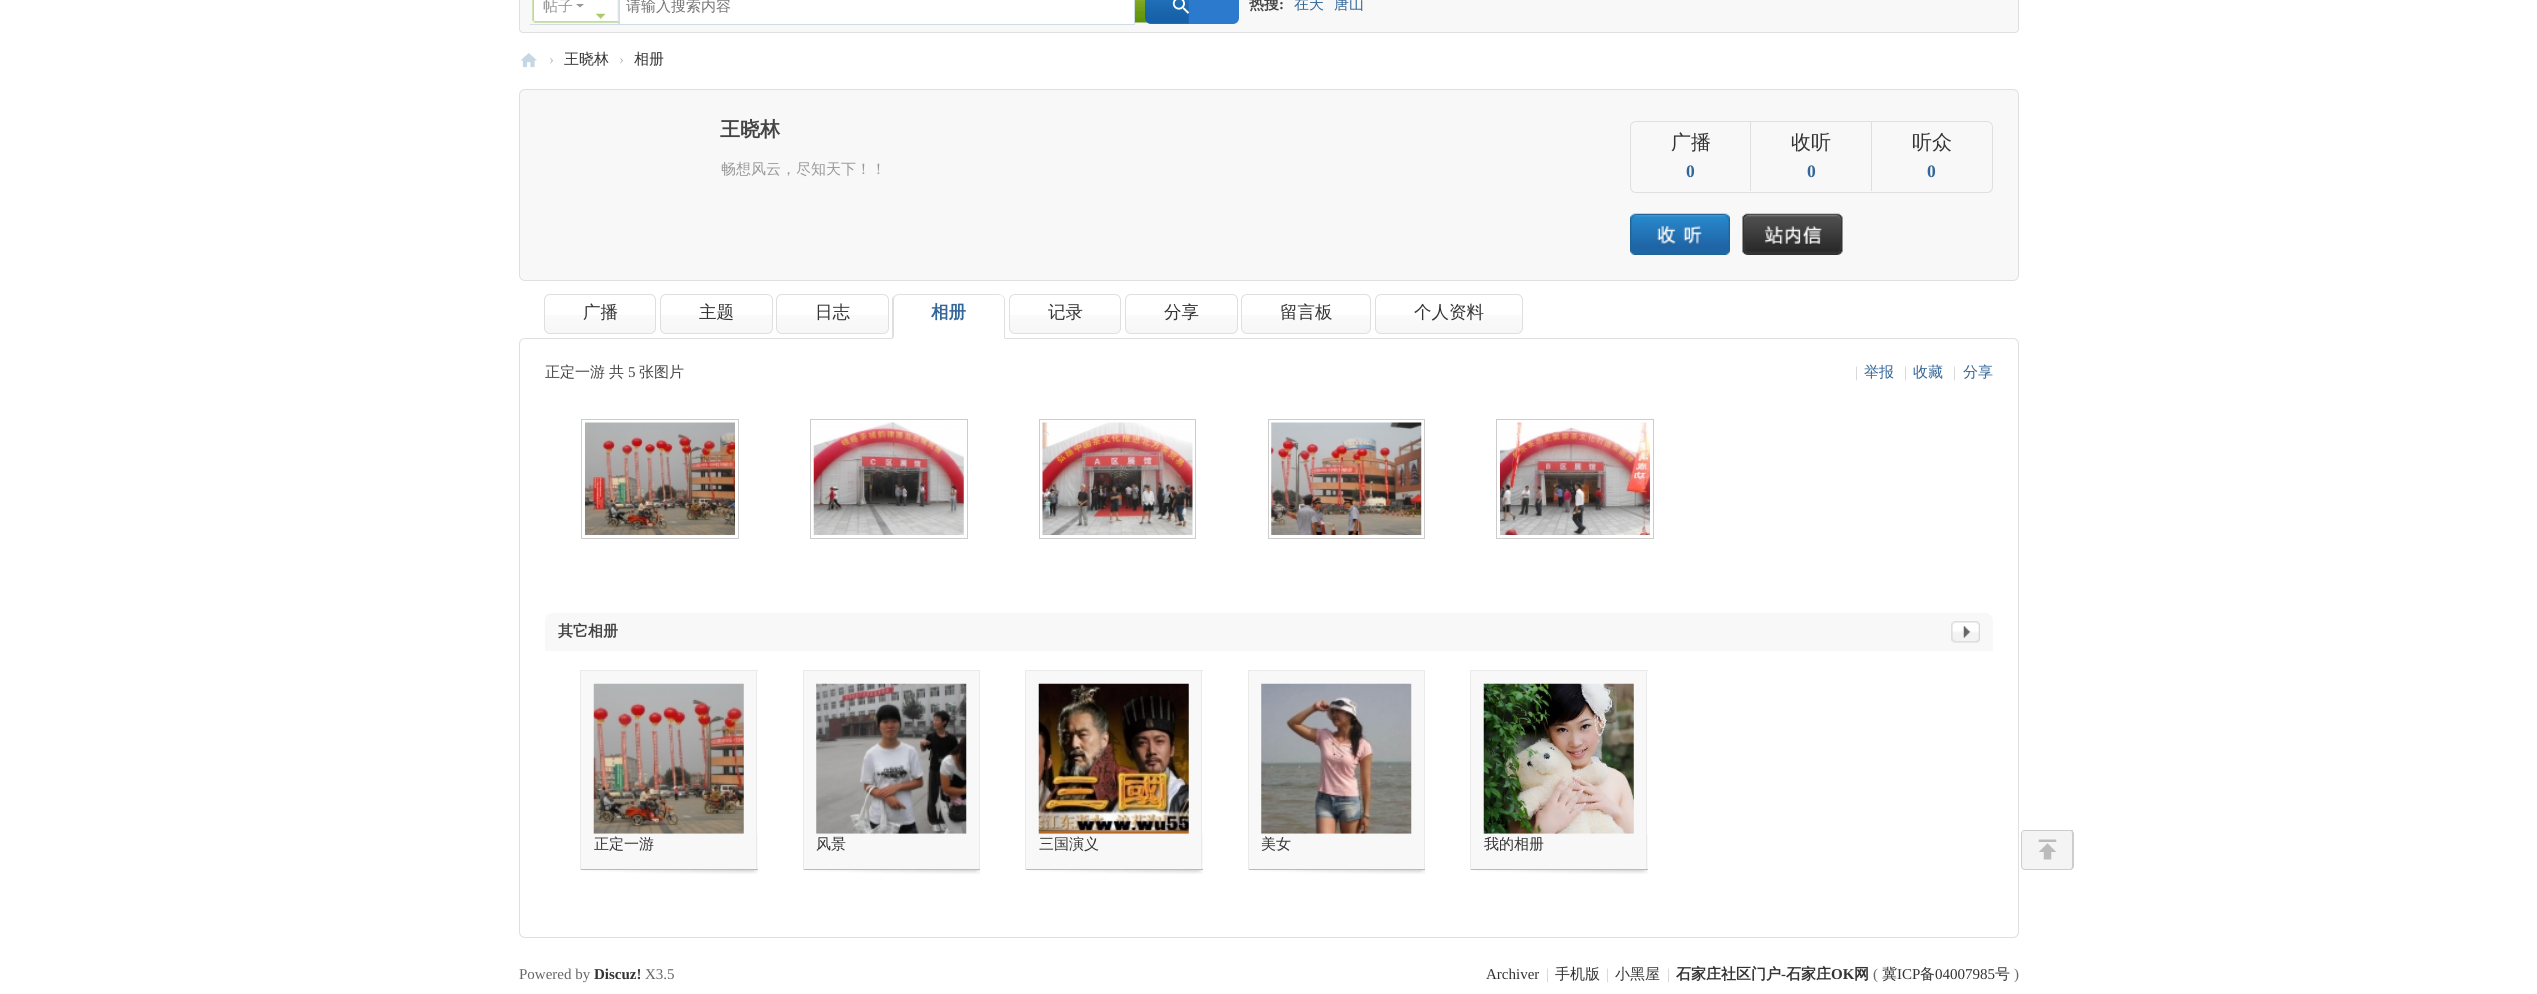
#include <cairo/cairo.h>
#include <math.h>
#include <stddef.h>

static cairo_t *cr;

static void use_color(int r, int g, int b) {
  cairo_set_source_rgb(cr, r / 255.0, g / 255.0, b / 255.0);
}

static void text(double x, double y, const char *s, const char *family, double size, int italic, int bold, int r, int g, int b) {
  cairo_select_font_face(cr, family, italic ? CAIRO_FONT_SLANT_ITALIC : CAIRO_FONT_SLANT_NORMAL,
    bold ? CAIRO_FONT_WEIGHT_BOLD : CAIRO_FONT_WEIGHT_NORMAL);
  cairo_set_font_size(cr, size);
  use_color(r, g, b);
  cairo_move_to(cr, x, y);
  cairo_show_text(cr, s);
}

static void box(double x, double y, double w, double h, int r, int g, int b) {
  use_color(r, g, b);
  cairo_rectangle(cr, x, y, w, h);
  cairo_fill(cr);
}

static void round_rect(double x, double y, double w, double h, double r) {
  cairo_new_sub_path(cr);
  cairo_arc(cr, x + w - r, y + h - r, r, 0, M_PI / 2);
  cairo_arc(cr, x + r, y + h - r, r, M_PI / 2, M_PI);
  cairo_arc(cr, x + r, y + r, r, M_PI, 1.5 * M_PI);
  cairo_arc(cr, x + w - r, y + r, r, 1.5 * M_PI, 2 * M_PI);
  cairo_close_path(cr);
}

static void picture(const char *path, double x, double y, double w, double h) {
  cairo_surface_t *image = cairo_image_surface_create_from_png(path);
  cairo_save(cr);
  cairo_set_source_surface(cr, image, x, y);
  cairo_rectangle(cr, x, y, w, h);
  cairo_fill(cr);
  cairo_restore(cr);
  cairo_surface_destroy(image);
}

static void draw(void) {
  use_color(255, 255, 255);
  cairo_paint(cr);
  use_color(248, 248, 248);
  round_rect(519.5, -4.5, 1499, 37, 3.5);
  cairo_fill_preserve(cr);
  use_color(223, 223, 223);
  cairo_set_line_width(cr, 1);
  cairo_stroke(cr);
  picture("img_01.png", 532, 0, 86, 23);
  picture("img_02.png", 596, 13, 9, 6);
  box(618, 0, 1, 25, 207, 222, 227);
  box(530, 24, 89, 1, 207, 222, 227);
  use_color(153, 153, 153);
  cairo_new_path(cr);
  cairo_move_to(cr, 576, 4);
  cairo_line_to(cr, 584, 4);
  cairo_line_to(cr, 580, 7.5);
  cairo_close_path(cr);
  cairo_fill(cr);
  picture("img_03.png", 618, 0, 1, 23);
  use_color(255, 255, 255);
  cairo_rectangle(cr, 619.5, -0.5, 515, 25);
  cairo_fill_preserve(cr);
  use_color(207, 222, 227);
  cairo_stroke(cr);
  picture("img_04.png", 1135, 0, 13, 23);
  use_color(43, 122, 205);
  round_rect(1145, -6, 94, 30, 6);
  cairo_fill(cr);
  picture("img_05.png", 1145, 0, 44, 24);
  picture("img_06.png", 1172, 0, 18, 14);
  picture("img_07.png", 520, 53, 17, 15);
  use_color(248, 248, 248);
  round_rect(519.5, 89.5, 1499, 191, 5.5);
  cairo_fill_preserve(cr);
  use_color(223, 223, 223);
  cairo_stroke(cr);
  round_rect(1630.5, 121.5, 362, 71, 5.5);
  cairo_stroke(cr);
  box(1750, 121, 1, 70, 223, 223, 223);
  box(1871, 121, 1, 70, 223, 223, 223);
  picture("img_08.png", 1630, 213, 100, 42);
  picture("img_09.png", 1742, 213, 101, 42);
  picture("img_10.png", 544, 315, 112, 19);
  round_rect(544.5, 294.5, 111, 39, 5.5);
  cairo_stroke(cr);
  picture("img_11.png", 660, 315, 112, 19);
  round_rect(660.5, 294.5, 112, 39, 5.5);
  cairo_stroke(cr);
  picture("img_12.png", 777, 315, 111, 19);
  round_rect(776.5, 294.5, 112, 39, 5.5);
  cairo_stroke(cr);
  round_rect(519.5, 338.5, 1499, 599, 5.5);
  cairo_stroke(cr);
  use_color(255, 255, 255);
  cairo_new_path(cr);
  cairo_move_to(cr, 899, 294);
  cairo_line_to(cr, 999, 294);
  cairo_curve_to(cr, 1002.5, 294, 1005, 296.5, 1005, 300);
  cairo_line_to(cr, 1005, 339);
  cairo_line_to(cr, 893, 339);
  cairo_line_to(cr, 893, 300);
  cairo_curve_to(cr, 893, 296.5, 895.5, 294, 899, 294);
  cairo_close_path(cr);
  cairo_fill(cr);
  use_color(223, 223, 223);
  cairo_new_path(cr);
  cairo_move_to(cr, 899, 294);
  cairo_curve_to(cr, 897, 294, 896, 295, 894, 296);
  cairo_line_to(cr, 895, 297);
  cairo_curve_to(cr, 896, 296, 897, 295, 899, 295);
  cairo_line_to(cr, 999, 295);
  cairo_curve_to(cr, 1000, 295, 1002, 295, 1002, 296);
  cairo_line_to(cr, 1003, 296);
  cairo_curve_to(cr, 1002, 295, 1000, 294, 999, 294);
  cairo_close_path(cr);
  cairo_fill(cr);
  cairo_new_path(cr);
  cairo_move_to(cr, 1003, 296);
  cairo_curve_to(cr, 1004, 297, 1005, 298, 1005, 300);
  cairo_line_to(cr, 1005, 339);
  cairo_line_to(cr, 1004, 338);
  cairo_line_to(cr, 1004, 300);
  cairo_curve_to(cr, 1004, 298, 1003, 297, 1002, 296);
  cairo_close_path(cr);
  cairo_fill(cr);
  use_color(255, 255, 255);
  cairo_new_path(cr);
  cairo_move_to(cr, 1005, 339);
  cairo_line_to(cr, 1004, 338);
  cairo_line_to(cr, 894, 338);
  cairo_line_to(cr, 894, 337);
  cairo_line_to(cr, 892, 339);
  cairo_close_path(cr);
  cairo_fill(cr);
  use_color(223, 223, 223);
  cairo_new_path(cr);
  cairo_move_to(cr, 892, 339);
  cairo_line_to(cr, 894, 337);
  cairo_line_to(cr, 894, 300);
  cairo_curve_to(cr, 894, 299, 894, 297, 895, 297);
  cairo_line_to(cr, 894, 296);
  cairo_line_to(cr, 892, 298);
  cairo_close_path(cr);
  cairo_fill(cr);
  picture("img_10.png", 1009, 315, 112, 19);
  round_rect(1009.5, 294.5, 111, 39, 5.5);
  cairo_stroke(cr);
  picture("img_11.png", 1125, 315, 112, 19);
  round_rect(1125.5, 294.5, 112, 39, 5.5);
  cairo_stroke(cr);
  picture("img_13.png", 1242, 315, 129, 19);
  round_rect(1241.5, 294.5, 129, 39, 5.5);
  cairo_stroke(cr);
  picture("img_14.png", 1375, 315, 147, 19);
  round_rect(1375.5, 294.5, 147, 39, 5.5);
  cairo_stroke(cr);
  cairo_rectangle(cr, 581.5, 419.5, 157, 119);
  use_color(204, 204, 204);
  cairo_stroke(cr);
  picture("img_15.png", 585, 422, 150, 113);
  cairo_rectangle(cr, 810.5, 419.5, 157, 119);
  cairo_stroke(cr);
  picture("img_16.png", 813, 422, 151, 113);
  cairo_rectangle(cr, 1039.5, 419.5, 156, 119);
  cairo_stroke(cr);
  picture("img_17.png", 1042, 422, 151, 113);
  cairo_rectangle(cr, 1268.5, 419.5, 156, 119);
  cairo_stroke(cr);
  picture("img_18.png", 1271, 422, 151, 113);
  cairo_rectangle(cr, 1496.5, 419.5, 157, 119);
  cairo_stroke(cr);
  picture("img_19.png", 1500, 422, 150, 113);
  use_color(248, 248, 248);
  cairo_new_path(cr);
  cairo_move_to(cr, 553, 613);
  cairo_line_to(cr, 1985, 613);
  cairo_curve_to(cr, 1989.5, 613, 1993, 616.5, 1993, 621);
  cairo_line_to(cr, 1993, 651);
  cairo_line_to(cr, 545, 651);
  cairo_line_to(cr, 545, 621);
  cairo_curve_to(cr, 545, 616.5, 548.5, 613, 553, 613);
  cairo_close_path(cr);
  cairo_fill(cr);
  picture("img_20.png", 1951, 621, 29, 22);
  picture("img_21.png", 585, 870, 173, 4);
  box(580, 670, 178, 1, 234, 234, 234);
  box(581, 671, 175, 163, 248, 248, 248);
  picture("img_22.png", 593, 683, 151, 151);
  box(581, 834, 177, 35, 248, 248, 248);
  box(756, 671, 1, 199, 234, 234, 234);
  box(580, 869, 178, 1, 185, 185, 185);
  box(580, 671, 1, 199, 234, 234, 234);
  picture("img_23.png", 808, 870, 172, 4);
  box(803, 670, 177, 1, 234, 234, 234);
  box(804, 671, 175, 198, 248, 248, 248);
  picture("img_24.png", 816, 683, 151, 151);
  box(979, 671, 1, 199, 234, 234, 234);
  box(803, 869, 177, 1, 185, 185, 185);
  box(803, 671, 1, 199, 234, 234, 234);
  picture("img_25.png", 1030, 870, 173, 4);
  box(1025, 670, 178, 1, 234, 234, 234);
  box(1026, 671, 175, 163, 248, 248, 248);
  picture("img_26.png", 1038, 683, 151, 151);
  box(1026, 834, 177, 35, 248, 248, 248);
  box(1201, 671, 1, 199, 234, 234, 234);
  box(1025, 869, 178, 1, 185, 185, 185);
  box(1025, 671, 1, 199, 234, 234, 234);
  picture("img_23.png", 1253, 870, 172, 4);
  box(1248, 670, 177, 1, 234, 234, 234);
  box(1249, 671, 175, 198, 248, 248, 248);
  picture("img_27.png", 1261, 683, 151, 151);
  box(1424, 671, 1, 199, 234, 234, 234);
  box(1248, 869, 177, 1, 185, 185, 185);
  box(1248, 671, 1, 199, 234, 234, 234);
  picture("img_25.png", 1475, 870, 173, 4);
  box(1470, 670, 178, 1, 234, 234, 234);
  box(1471, 671, 175, 163, 248, 248, 248);
  picture("img_28.png", 1483, 683, 151, 151);
  box(1471, 834, 177, 35, 248, 248, 248);
  box(1646, 671, 1, 199, 234, 234, 234);
  box(1470, 869, 178, 1, 185, 185, 185);
  box(1470, 671, 1, 199, 234, 234, 234);
  use_color(244, 244, 244);
  round_rect(2021, 830, 53, 40, 4);
  cairo_fill(cr);
  use_color(205, 205, 205);
  cairo_set_fill_rule(cr, CAIRO_FILL_RULE_EVEN_ODD);
  cairo_new_path(cr);
  cairo_move_to(cr, 2025, 830);
  cairo_line_to(cr, 2070, 830);
  cairo_curve_to(cr, 2072, 830, 2074, 832, 2074, 834);
  cairo_line_to(cr, 2074, 866);
  cairo_curve_to(cr, 2074, 868, 2072, 870, 2070, 870);
  cairo_line_to(cr, 2025, 870);
  cairo_curve_to(cr, 2023, 870, 2021, 868, 2021, 866);
  cairo_line_to(cr, 2021, 834);
  cairo_curve_to(cr, 2021, 832, 2023, 830, 2025, 830);
  cairo_close_path(cr);
  cairo_move_to(cr, 2025, 830);
  cairo_line_to(cr, 2070, 830);
  cairo_curve_to(cr, 2071, 830, 2072, 832, 2072, 834);
  cairo_line_to(cr, 2072, 866);
  cairo_curve_to(cr, 2072, 868, 2071, 869, 2070, 869);
  cairo_line_to(cr, 2025, 869);
  cairo_curve_to(cr, 2024, 869, 2022, 868, 2022, 866);
  cairo_line_to(cr, 2022, 834);
  cairo_curve_to(cr, 2022, 832, 2024, 830, 2025, 830);
  cairo_close_path(cr);
  cairo_fill(cr);
  box(2023, 830, 50, 1, 205, 205, 205);
  picture("img_29.png", 2038, 839, 19, 21);
  text(543, 11, "帖子", "WenQuanYi Zen Hei Medium", 15, 0, 0, 153, 153, 153);
  text(626, 11, "请输入搜索内容", "WenQuanYi Zen Hei Medium", 15, 0, 0, 117, 117, 117);
  text(1249, 9, "热搜", "WenQuanYi Zen Hei", 15, 0, 1, 68, 68, 68);
  text(1279, 9, ":", "Liberation Serif", 15, 0, 1, 68, 68, 68);
  text(1294, 9, "在天", "WenQuanYi Zen Hei Medium", 15, 0, 0, 51, 102, 153);
  text(1334, 9, "唐山", "WenQuanYi Zen Hei Medium", 15, 0, 0, 51, 102, 153);
  text(549, 64, "›", "Liberation Serif", 15, 0, 0, 189, 189, 189);
  text(564, 64, "王晓林", "WenQuanYi Zen Hei Medium", 15, 0, 0, 51, 51, 51);
  text(619, 64, "›", "Liberation Serif", 15, 0, 0, 189, 189, 189);
  text(634, 64, "相册", "WenQuanYi Zen Hei Medium", 15, 0, 0, 51, 51, 51);
  text(720, 136, "王晓林", "WenQuanYi Zen Hei", 20, 0, 1, 68, 68, 68);
  text(721, 174, "畅想风云，尽知天下！！", "WenQuanYi Zen Hei Medium", 15, 0, 0, 153, 153, 153);
  text(1671, 149, "广播", "WenQuanYi Zen Hei Medium", 20, 0, 0, 51, 51, 51);
  text(1686, 177, "0", "Liberation Serif", 17.5, 0, 1, 51, 102, 153);
  text(1791, 149, "收听", "WenQuanYi Zen Hei Medium", 20, 0, 0, 51, 51, 51);
  text(1807, 177, "0", "Liberation Serif", 17.5, 0, 1, 51, 102, 153);
  text(1912, 149, "听众", "WenQuanYi Zen Hei Medium", 20, 0, 0, 51, 51, 51);
  text(1927, 177, "0", "Liberation Serif", 17.5, 0, 1, 51, 102, 153);
  text(583, 318, "广播", "WenQuanYi Zen Hei Medium", 17.5, 0, 0, 51, 51, 51);
  text(699, 318, "主题", "WenQuanYi Zen Hei Medium", 17.5, 0, 0, 51, 51, 51);
  text(815, 318, "日志", "WenQuanYi Zen Hei Medium", 17.5, 0, 0, 51, 51, 51);
  text(931, 318, "相册", "WenQuanYi Zen Hei", 17.5, 0, 1, 51, 102, 153);
  text(1048, 318, "记录", "WenQuanYi Zen Hei Medium", 17.5, 0, 0, 51, 51, 51);
  text(1164, 318, "分享", "WenQuanYi Zen Hei Medium", 17.5, 0, 0, 51, 51, 51);
  text(1280, 318, "留言板", "WenQuanYi Zen Hei Medium", 17.5, 0, 0, 51, 51, 51);
  text(1414, 318, "个人资料", "WenQuanYi Zen Hei Medium", 17.5, 0, 0, 51, 51, 51);
  text(545, 377, "正定一游", "WenQuanYi Zen Hei Medium", 15, 0, 0, 68, 68, 68);
  text(609, 377, "共", "WenQuanYi Zen Hei Medium", 15, 0, 0, 68, 68, 68);
  text(628, 377, "5", "Liberation Serif", 15, 0, 0, 68, 68, 68);
  text(639, 377, "张图片", "WenQuanYi Zen Hei Medium", 15, 0, 0, 68, 68, 68);
  text(1855, 377, "|", "Liberation Serif", 15, 0, 0, 204, 204, 204);
  text(1864, 377, "举报", "WenQuanYi Zen Hei Medium", 15, 0, 0, 51, 102, 153);
  text(1904, 377, "|", "Liberation Serif", 15, 0, 0, 204, 204, 204);
  text(1913, 377, "收藏", "WenQuanYi Zen Hei Medium", 15, 0, 0, 51, 102, 153);
  text(1953, 377, "|", "Liberation Serif", 15, 0, 0, 204, 204, 204);
  text(1963, 377, "分享", "WenQuanYi Zen Hei Medium", 15, 0, 0, 51, 102, 153);
  text(558, 636, "其它相册", "WenQuanYi Zen Hei", 15, 0, 1, 68, 68, 68);
  text(594, 849, "正定一游", "WenQuanYi Zen Hei Medium", 15, 0, 0, 51, 51, 51);
  text(816, 849, "风景", "WenQuanYi Zen Hei Medium", 15, 0, 0, 51, 51, 51);
  text(1039, 849, "三国演义", "WenQuanYi Zen Hei Medium", 15, 0, 0, 51, 51, 51);
  text(1261, 849, "美女", "WenQuanYi Zen Hei Medium", 15, 0, 0, 51, 51, 51);
  text(1484, 849, "我的相册", "WenQuanYi Zen Hei Medium", 15, 0, 0, 51, 51, 51);
  text(519, 979, "Powered by", "Liberation Serif", 15, 0, 0, 102, 102, 102);
  text(594, 979, "Discuz!", "Liberation Serif", 15, 0, 1, 51, 51, 51);
  text(645, 979, "X3.5", "Liberation Serif", 15, 0, 0, 102, 102, 102);
  text(1486, 979, "Archiver", "Liberation Serif", 15, 0, 0, 51, 51, 51);
  text(1546, 979, "|", "Liberation Serif", 15, 0, 0, 204, 204, 204);
  text(1555, 979, "手机版", "WenQuanYi Zen Hei Medium", 15, 0, 0, 51, 51, 51);
  text(1606, 979, "|", "Liberation Serif", 15, 0, 0, 204, 204, 204);
  text(1615, 979, "小黑屋", "WenQuanYi Zen Hei Medium", 15, 0, 0, 51, 51, 51);
  text(1667, 979, "|", "Liberation Serif", 15, 0, 0, 204, 204, 204);
  text(1676, 979, "石家庄社区门户", "WenQuanYi Zen Hei", 15, 0, 1, 51, 51, 51);
  text(1781, 979, "-", "Liberation Serif", 15, 0, 1, 51, 51, 51);
  text(1786, 979, "石家庄", "WenQuanYi Zen Hei", 15, 0, 1, 51, 51, 51);
  text(1831, 979, "OK", "Liberation Serif", 15, 0, 1, 51, 51, 51);
  text(1854, 979, "网", "WenQuanYi Zen Hei", 15, 0, 1, 51, 51, 51);
  text(1873, 979, "(", "Liberation Serif", 15, 0, 0, 102, 102, 102);
  text(1882, 979, "冀", "WenQuanYi Zen Hei Medium", 15, 0, 0, 51, 51, 51);
  text(1897, 979, "ICP", "Liberation Serif", 15, 0, 0, 51, 51, 51);
  text(1920, 979, "备", "WenQuanYi Zen Hei Medium", 15, 0, 0, 51, 51, 51);
  text(1935, 979, "04007985", "Liberation Serif", 15, 0, 0, 51, 51, 51);
  text(1995, 979, "号", "WenQuanYi Zen Hei Medium", 15, 0, 0, 51, 51, 51);
  text(2014, 979, ")", "Liberation Serif", 15, 0, 0, 102, 102, 102);
}

int main(void) {
  cairo_surface_t *surface = cairo_image_surface_create(CAIRO_FORMAT_RGB24, 2537, 994);
  cr = cairo_create(surface);
  cairo_font_options_t *options = cairo_font_options_create();
  cairo_font_options_set_hint_metrics(options, CAIRO_HINT_METRICS_OFF);
  cairo_font_options_set_hint_style(options, CAIRO_HINT_STYLE_NONE);
  cairo_set_font_options(cr, options);
  cairo_set_miter_limit(cr, 4);
  draw();
  cairo_surface_write_to_png(surface, "out.png");
  cairo_font_options_destroy(options);
  cairo_destroy(cr);
  cairo_surface_destroy(surface);
  return 0;
}
